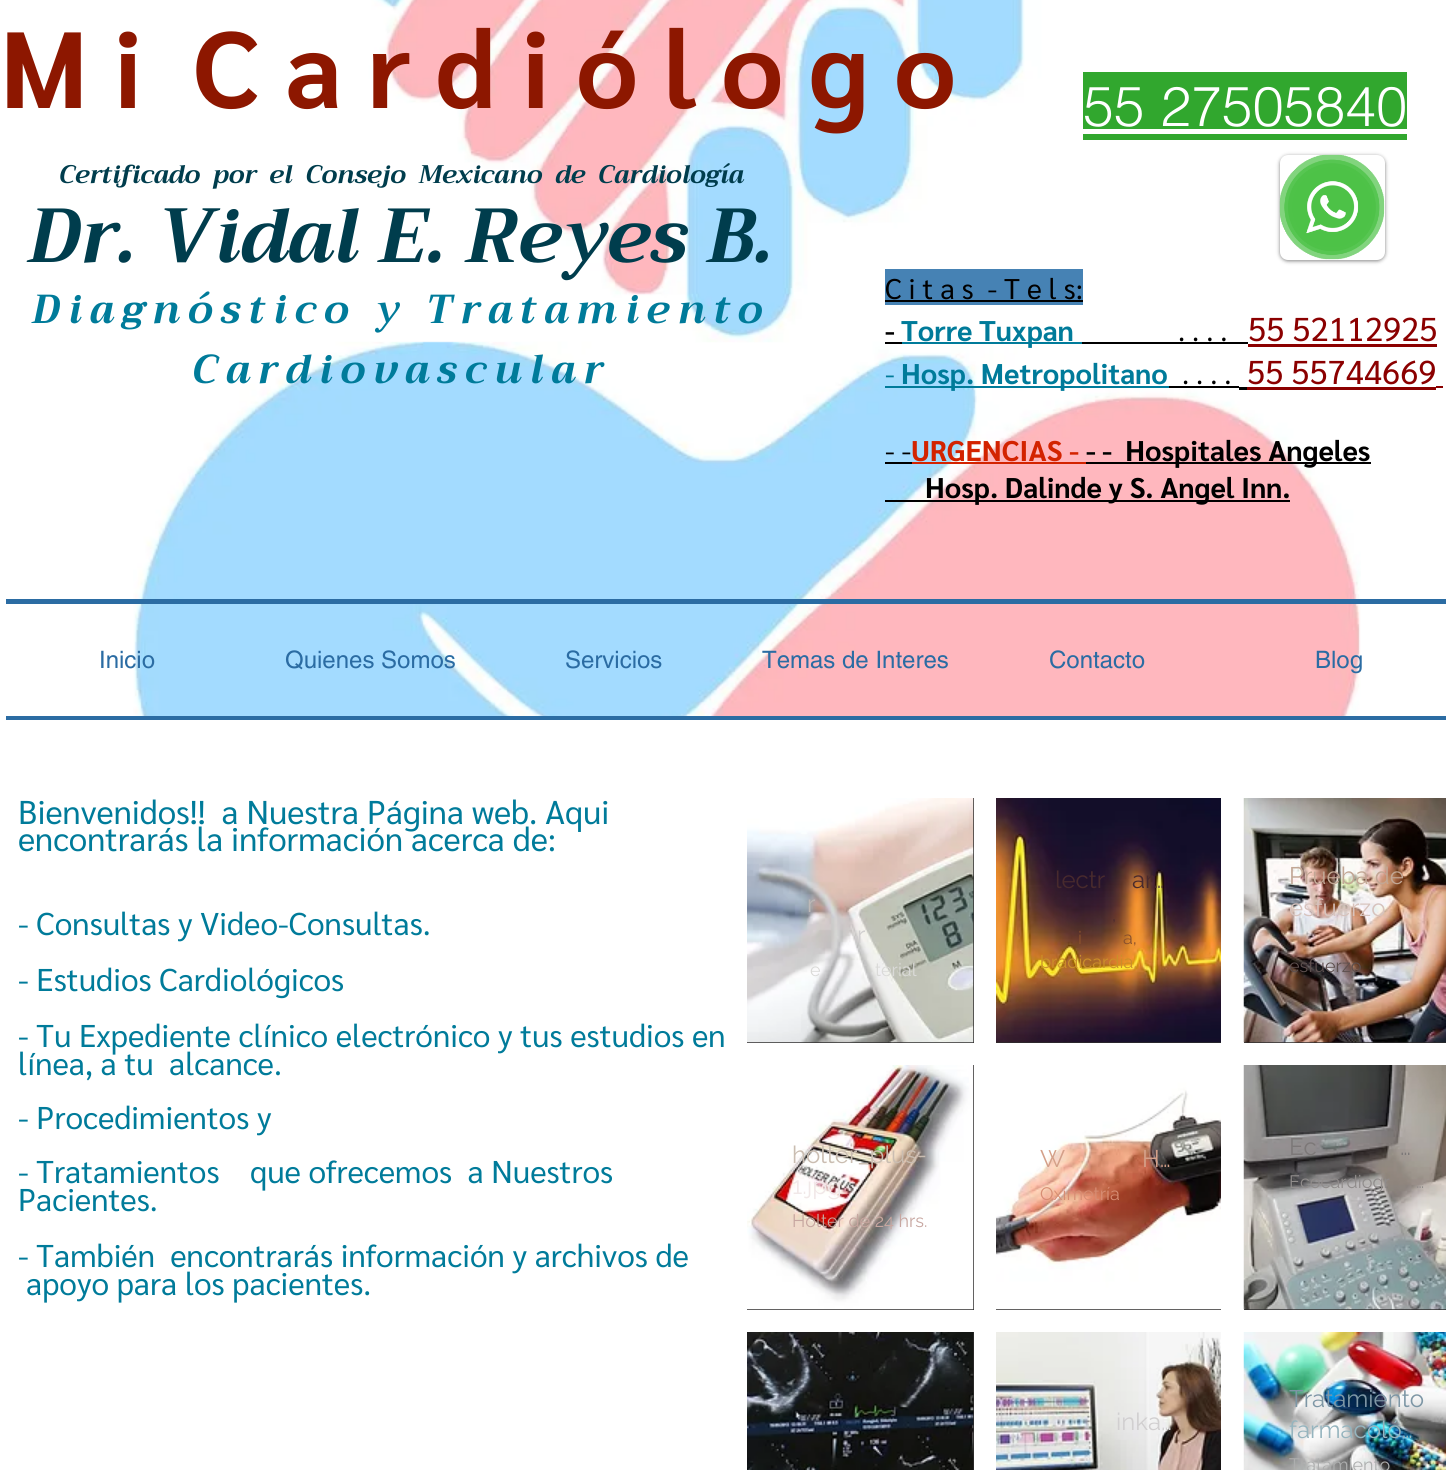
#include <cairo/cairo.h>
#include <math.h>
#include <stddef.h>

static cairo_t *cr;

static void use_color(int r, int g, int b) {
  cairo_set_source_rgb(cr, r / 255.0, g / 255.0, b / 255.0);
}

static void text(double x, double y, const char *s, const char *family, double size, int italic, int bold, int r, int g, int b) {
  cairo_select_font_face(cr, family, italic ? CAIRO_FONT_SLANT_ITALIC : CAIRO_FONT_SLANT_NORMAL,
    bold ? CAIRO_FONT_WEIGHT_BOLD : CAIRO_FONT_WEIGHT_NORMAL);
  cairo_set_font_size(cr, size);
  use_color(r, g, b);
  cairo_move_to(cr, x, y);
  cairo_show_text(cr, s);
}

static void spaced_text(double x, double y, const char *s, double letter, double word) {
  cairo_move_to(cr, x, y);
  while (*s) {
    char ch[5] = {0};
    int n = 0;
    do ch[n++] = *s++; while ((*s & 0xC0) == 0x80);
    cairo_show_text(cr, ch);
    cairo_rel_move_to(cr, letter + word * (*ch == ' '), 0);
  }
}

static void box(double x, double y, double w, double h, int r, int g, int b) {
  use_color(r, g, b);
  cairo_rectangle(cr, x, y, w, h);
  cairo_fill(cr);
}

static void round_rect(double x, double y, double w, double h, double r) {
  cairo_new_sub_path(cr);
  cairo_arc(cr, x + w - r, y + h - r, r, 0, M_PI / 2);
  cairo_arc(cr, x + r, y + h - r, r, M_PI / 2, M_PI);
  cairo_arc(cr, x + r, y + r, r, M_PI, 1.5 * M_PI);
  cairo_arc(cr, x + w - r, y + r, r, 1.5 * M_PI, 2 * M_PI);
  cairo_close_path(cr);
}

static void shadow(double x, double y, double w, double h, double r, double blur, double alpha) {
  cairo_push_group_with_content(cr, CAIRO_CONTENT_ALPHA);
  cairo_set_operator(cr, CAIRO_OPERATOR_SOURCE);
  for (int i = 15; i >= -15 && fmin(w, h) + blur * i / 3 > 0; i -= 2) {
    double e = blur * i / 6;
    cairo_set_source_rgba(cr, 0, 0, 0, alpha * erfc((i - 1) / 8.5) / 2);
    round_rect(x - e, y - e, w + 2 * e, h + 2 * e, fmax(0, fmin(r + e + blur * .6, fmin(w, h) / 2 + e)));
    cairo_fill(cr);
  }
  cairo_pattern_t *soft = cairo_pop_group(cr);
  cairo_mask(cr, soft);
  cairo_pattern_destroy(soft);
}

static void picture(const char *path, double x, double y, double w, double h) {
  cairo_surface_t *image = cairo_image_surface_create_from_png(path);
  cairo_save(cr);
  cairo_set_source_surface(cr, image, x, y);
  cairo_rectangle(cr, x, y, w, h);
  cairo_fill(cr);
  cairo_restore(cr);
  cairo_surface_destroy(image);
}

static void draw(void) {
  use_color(255, 255, 255);
  cairo_paint(cr);
  picture("img_01.png", 133, 0, 1228, 716);
  box(1083, 72, 324, 68, 49, 167, 46);
  box(1083, 129, 324, 5, 255, 255, 255);
  use_color(0, 0, 0);
  shadow(1280, 156, 105, 105, 8, 2, 0.5);
  use_color(255, 255, 255);
  round_rect(1280, 155, 105, 105, 8);
  cairo_fill(cr);
  picture("img_02.png", 1279, 154, 106, 106);
  box(885, 269, 198, 36, 70, 130, 180);
  box(885, 300, 198, 2, 0, 0, 0);
  box(885, 342, 17, 2, 0, 0, 0);
  box(902, 342, 180, 2, 0, 123, 154);
  box(1248, 344, 189, 3, 139, 0, 0);
  box(1082, 342, 166, 2, 0, 0, 0);
  box(885, 386, 284, 2, 0, 123, 154);
  box(1239, 387, 8, 3, 0, 0, 0);
  box(1247, 387, 189, 3, 139, 0, 0);
  box(1169, 386, 70, 2, 0, 0, 0);
  box(885, 462, 27, 2, 0, 0, 0);
  box(1436, 386, 7, 2, 139, 0, 0);
  box(912, 462, 174, 2, 211, 35, 0);
  box(1086, 462, 285, 2, 0, 0, 0);
  box(885, 500, 405, 2, 0, 0, 0);
  box(6, 599, 1440, 5, 43, 108, 163);
  box(6, 716, 1440, 4, 43, 108, 163);
  box(747, 798, 227, 245, 47, 46, 46);
  picture("img_03.png", 747, 798, 227, 245);
  box(996, 1042, 225, 1, 47, 46, 46);
  picture("img_04.png", 996, 798, 225, 245);
  box(1244, 1042, 202, 1, 47, 46, 46);
  picture("img_05.png", 1243, 798, 203, 245);
  box(747, 1065, 227, 245, 47, 46, 46);
  picture("img_06.png", 747, 1065, 227, 245);
  box(996, 1309, 225, 1, 47, 46, 46);
  picture("img_07.png", 996, 1065, 225, 245);
  box(1244, 1309, 202, 1, 47, 46, 46);
  picture("img_08.png", 1243, 1065, 203, 245);
  box(973, 1332, 1, 138, 47, 46, 46);
  picture("img_09.png", 747, 1332, 227, 138);
  picture("img_10.png", 996, 1332, 225, 138);
  picture("img_11.png", 1243, 1332, 203, 138);
  text(0, 108, "M i  C a r d i ó l o g o", "Sarabun", 108, 0, 1, 141, 23, 0);
  text(1083, 126, "55 27505840", "helvetica Light", 55.5, 0, 0, 255, 255, 255);
  text(59, 183, "Certificado  por  el  Consejo  Mexicano  de  Cardiología", "Trirong", 25.5, 1, 1, 0, 61, 77);
  text(28, 262, "Dr. Vidal E. Reyes B.", "Trirong", 76.5, 1, 1, 0, 61, 77);
  cairo_set_font_size(cr, 40.5);
  use_color(0, 123, 154);
  spaced_text(32, 323, "Diagnóstico y Tratamiento", 8.1, 0);
  spaced_text(192, 383, "Cardiovascular", 8.1, 0);
  text(885, 299, "C i t a s  - T e l s:", "Sarabun", 28.5, 0, 0, 0, 0, 0);
  text(885, 341, "-", "Sarabun", 28.5, 0, 1, 0, 0, 0);
  text(901, 341, "Torre Tuxpan", "Sarabun", 28.5, 0, 1, 0, 123, 154);
  text(1248, 341, "55 52112925", "Sarabun", 33, 0, 0, 139, 0, 0);
  text(1178, 341, ". . . .", "Sarabun", 28.5, 0, 0, 0, 0, 0);
  text(885, 384, "-", "Sarabun", 28.5, 0, 0, 0, 123, 154);
  text(901, 384, "Hosp. Metropolitano", "Sarabun", 28.5, 0, 1, 0, 123, 154);
  text(1247, 384, "55 55744669", "Sarabun", 33, 0, 0, 139, 0, 0);
  text(1182, 384, ". . . .", "Sarabun", 28.5, 0, 0, 0, 0, 0);
  text(885, 461, "- -", "Sarabun", 28.5, 0, 0, 0, 0, 0);
  text(911, 461, "URGENCIAS -", "Sarabun", 28.5, 0, 1, 211, 35, 0);
  text(1086, 461, "- -  Hospitales Angeles", "Sarabun", 28.5, 0, 1, 0, 0, 0);
  text(925, 498, "Hosp. Dalinde y S. Angel Inn.", "Sarabun", 28.5, 0, 1, 0, 0, 0);
  text(99, 668, "Inicio", "helvetica", 24, 0, 0, 43, 108, 163);
  text(285, 668, "Quienes Somos", "helvetica", 24, 0, 0, 43, 108, 163);
  text(565, 668, "Servicios", "helvetica", 24, 0, 0, 43, 108, 163);
  text(762, 668, "Temas de Interes", "helvetica", 24, 0, 0, 43, 108, 163);
  text(1049, 668, "Contacto", "helvetica", 24, 0, 0, 43, 108, 163);
  text(1315, 668, "Blog", "helvetica", 24, 0, 0, 43, 108, 163);
  text(18, 824, "Bienvenidos!!  a Nuestra Página web. Aqui", "Sarabun", 33, 0, 0, 0, 123, 154);
  text(18, 851, "encontrarás la información acerca de:", "Sarabun", 33, 0, 0, 0, 123, 154);
  text(18, 935, "- Consultas y Video-Consultas.", "Sarabun", 31.5, 0, 0, 0, 123, 154);
  text(18, 991, "- Estudios Cardiológicos", "Sarabun", 31.5, 0, 0, 0, 123, 154);
  text(18, 1047, "- Tu Expediente clínico electrónico y tus estudios en", "Sarabun", 31.5, 0, 0, 0, 123, 154);
  text(18, 1075, "línea, a tu  alcance.", "Sarabun", 31.5, 0, 0, 0, 123, 154);
  text(18, 1129, "- Procedimientos y", "Sarabun", 31.5, 0, 0, 0, 123, 154);
  text(18, 1183, "- Tratamientos", "Sarabun", 31.5, 0, 0, 0, 123, 154);
  text(250, 1183, "que ofrecemos  a Nuestros", "Sarabun", 31.5, 0, 0, 0, 123, 154);
  text(18, 1211, "Pacientes.", "Sarabun", 31.5, 0, 0, 0, 123, 154);
  text(18, 1267, "- También  encontrarás información y archivos de", "Sarabun", 31.5, 0, 0, 0, 123, 154);
  text(26, 1295, "apoyo para los pacientes.", "Sarabun", 31.5, 0, 0, 0, 123, 154);
  text(807, 912, "r", "Raleway", 24, 0, 0, 189, 184, 182);
  text(857, 943, "r", "Raleway", 24, 0, 0, 209, 207, 208);
  text(810, 976, "e", "Raleway", 18, 0, 0, 218, 218, 216);
  text(875, 976, "terial", "Raleway", 18, 0, 0, 218, 218, 216);
  text(1055, 888, "lectr", "Raleway", 24, 0, 0, 72, 42, 45);
  text(1132, 888, "ar…", "Raleway", 24, 0, 0, 72, 42, 45);
  text(1112, 921, ",", "Raleway", 18, 0, 0, 72, 42, 45);
  text(1078, 944, "i", "Raleway", 18, 0, 0, 138, 81, 44);
  text(1123, 944, "a,", "Raleway", 18, 0, 0, 138, 81, 44);
  text(1040, 968, "bradicardia,", "Raleway", 18, 0, 0, 203, 143, 41);
  text(1289, 884, "Prueba de", "Raleway", 24, 0, 0, 194, 167, 149);
  text(1289, 916, "esfuerzo", "Raleway", 24, 0, 0, 215, 195, 189);
  text(1289, 972, "esfuerzo", "Raleway", 18, 0, 0, 94, 80, 79);
  text(792, 1163, "holter_plus-", "Raleway", 24, 0, 0, 202, 189, 177);
  text(792, 1194, "1.jpg", "Raleway", 24, 0, 0, 241, 232, 232);
  text(792, 1227, "Holter de 24 hrs.", "Raleway", 18, 0, 0, 199, 166, 160);
  text(1040, 1167, "W", "Raleway", 24, 0, 0, 212, 160, 137);
  text(1142, 1167, "H…", "Raleway", 24, 0, 0, 212, 160, 137);
  text(1040, 1200, "Oximetría", "Raleway", 18, 0, 0, 215, 141, 115);
  text(1289, 1155, "Ec", "Raleway", 24, 0, 0, 124, 120, 120);
  text(1400, 1155, "…", "Raleway", 24, 0, 0, 124, 120, 120);
  text(1289, 1188, "Ecocardiogr", "Raleway", 18, 0, 0, 144, 140, 139);
  text(1416, 1188, "…", "Raleway", 18, 0, 0, 144, 140, 139);
  text(1116, 1430, "inka…", "Raleway", 24, 0, 0, 209, 207, 208);
  text(1289, 1407, "Tratamiento", "Raleway", 24, 0, 0, 125, 150, 165);
  text(1289, 1438, "farmacoló…", "Raleway", 24, 0, 0, 149, 180, 190);
  text(1289, 1471, "Tratamiento", "Raleway", 18, 0, 0, 173, 174, 174);
}

int main(void) {
  cairo_surface_t *surface = cairo_image_surface_create(CAIRO_FORMAT_RGB24, 1446, 1470);
  cr = cairo_create(surface);
  cairo_font_options_t *options = cairo_font_options_create();
  cairo_font_options_set_hint_metrics(options, CAIRO_HINT_METRICS_OFF);
  cairo_font_options_set_hint_style(options, CAIRO_HINT_STYLE_NONE);
  cairo_set_font_options(cr, options);
  cairo_set_miter_limit(cr, 4);
  draw();
  cairo_surface_write_to_png(surface, "out.png");
  cairo_font_options_destroy(options);
  cairo_destroy(cr);
  cairo_surface_destroy(surface);
  return 0;
}
